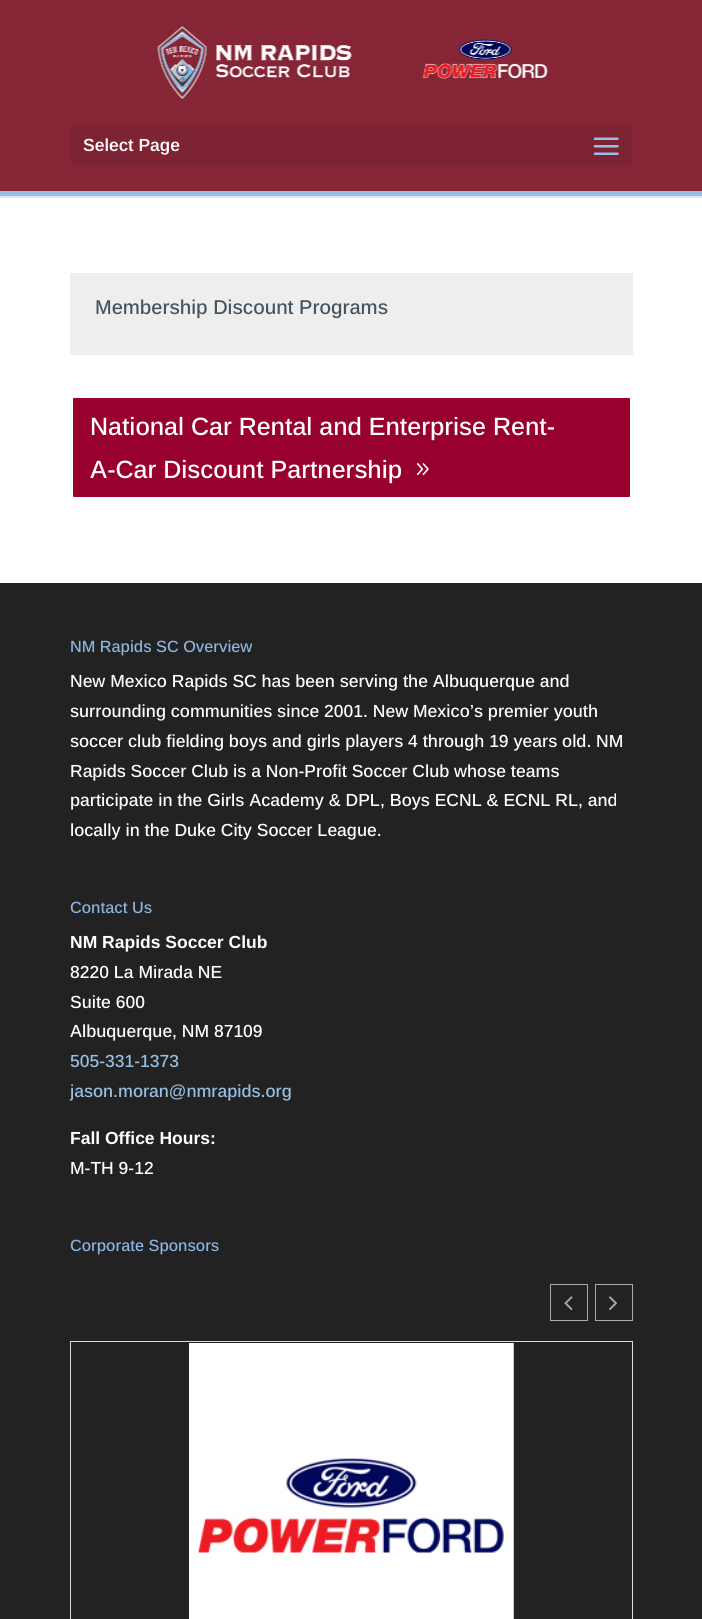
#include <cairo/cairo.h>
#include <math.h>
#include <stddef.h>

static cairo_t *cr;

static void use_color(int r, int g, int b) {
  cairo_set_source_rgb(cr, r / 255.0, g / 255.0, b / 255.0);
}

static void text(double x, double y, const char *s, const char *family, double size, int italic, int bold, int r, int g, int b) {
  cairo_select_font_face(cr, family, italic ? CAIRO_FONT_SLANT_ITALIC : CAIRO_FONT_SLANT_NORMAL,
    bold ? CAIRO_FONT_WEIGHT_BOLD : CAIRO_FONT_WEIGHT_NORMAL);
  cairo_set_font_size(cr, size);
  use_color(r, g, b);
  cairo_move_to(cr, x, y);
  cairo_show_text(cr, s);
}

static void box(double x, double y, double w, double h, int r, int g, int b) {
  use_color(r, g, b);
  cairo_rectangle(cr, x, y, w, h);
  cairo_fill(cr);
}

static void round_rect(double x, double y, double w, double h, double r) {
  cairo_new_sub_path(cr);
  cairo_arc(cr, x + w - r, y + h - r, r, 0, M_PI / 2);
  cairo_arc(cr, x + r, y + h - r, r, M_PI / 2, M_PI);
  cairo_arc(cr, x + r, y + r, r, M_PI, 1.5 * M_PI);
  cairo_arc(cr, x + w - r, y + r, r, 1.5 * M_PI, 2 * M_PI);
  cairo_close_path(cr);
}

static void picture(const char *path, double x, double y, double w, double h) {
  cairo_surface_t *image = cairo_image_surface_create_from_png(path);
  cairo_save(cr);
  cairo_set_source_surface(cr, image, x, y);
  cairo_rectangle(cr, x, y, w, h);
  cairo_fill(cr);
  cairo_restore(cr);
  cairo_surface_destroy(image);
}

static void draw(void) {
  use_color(34, 34, 34);
  cairo_paint(cr);
  use_color(230, 230, 230);
  cairo_new_path(cr);
  cairo_move_to(cr, 0, 196);
  cairo_line_to(cr, 0, 198);
  cairo_line_to(cr, 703, 198);
  cairo_line_to(cr, 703, 1);
  cairo_line_to(cr, 702, 1);
  cairo_line_to(cr, 702, 196);
  cairo_close_path(cr);
  cairo_fill(cr);
  box(0, 0, 702, 191, 133, 37, 54);
  box(0, 191, 702, 5, 151, 192, 230);
  picture("img_01.png", 157, 26, 391, 73);
  use_color(126, 35, 51);
  round_rect(70, 125, 563, 41, 6);
  cairo_fill(cr);
  picture("img_02.png", 593, 137, 26, 18);
  box(0, 198, 702, 385, 255, 255, 255);
  box(70, 273, 563, 82, 238, 238, 238);
  use_color(152, 1, 46);
  round_rect(71.5, 396.5, 560, 102, 2.5);
  cairo_fill_preserve(cr);
  use_color(255, 255, 255);
  cairo_set_line_width(cr, 3);
  cairo_stroke(cr);
  picture("img_03.png", 417, 463, 12, 13);
  cairo_rectangle(cr, 550.5, 1284.5, 37, 36);
  use_color(170, 170, 170);
  cairo_set_line_width(cr, 1);
  cairo_stroke(cr);
  picture("img_04.png", 564, 1296, 9, 15);
  cairo_rectangle(cr, 595.5, 1284.5, 37, 36);
  cairo_stroke(cr);
  picture("img_05.png", 609, 1296, 8, 15);
  cairo_rectangle(cr, 70.5, 1341.5, 562, 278);
  use_color(221, 221, 221);
  cairo_stroke(cr);
  picture("img_06.png", 189, 1343, 325, 276);
  text(83, 151, "Select Page", "Arimo SemiBold", 17.5, 0, 0, 255, 255, 255);
  text(95, 314, "Membership Discount Programs", "Arimo Medium", 20, 0, 0, 69, 85, 96);
  text(90, 435, "National Car Rental and Enterprise Rent-", "Arimo Medium", 25, 0, 0, 255, 255, 255);
  text(90, 478, "A-Car Discount Partnership", "Arimo Medium", 25, 0, 0, 255, 255, 255);
  text(70, 652, "NM Rapids SC Overview", "Arimo Medium", 16.25, 0, 0, 139, 180, 223);
  text(70, 687, "New Mexico Rapids SC has been serving the Albuquerque and", "Arimo Medium", 17.5, 0, 0, 255, 255, 255);
  text(70, 717, "surrounding communities since 2001. New Mexico’s premier youth", "Arimo Medium", 17.5, 0, 0, 255, 255, 255);
  text(70, 747, "soccer club fielding boys and girls players 4 through 19 years old. NM", "Arimo Medium", 17.5, 0, 0, 255, 255, 255);
  text(70, 777, "Rapids Soccer Club is a Non-Profit Soccer Club whose teams", "Arimo Medium", 17.5, 0, 0, 255, 255, 255);
  text(70, 806, "participate in the Girls Academy & DPL, Boys ECNL & ECNL RL, and", "Arimo Medium", 17.5, 0, 0, 255, 255, 255);
  text(70, 836, "locally in the Duke City Soccer League.", "Arimo Medium", 17.5, 0, 0, 255, 255, 255);
  text(70, 913, "Contact Us", "Arimo Medium", 16.25, 0, 0, 139, 180, 223);
  text(70, 948, "NM Rapids Soccer Club", "Arimo", 17.5, 0, 1, 255, 255, 255);
  text(70, 978, "8220 La Mirada NE", "Arimo Medium", 17.5, 0, 0, 255, 255, 255);
  text(70, 1008, "Suite 600", "Arimo Medium", 17.5, 0, 0, 255, 255, 255);
  text(70, 1037, "Albuquerque, NM 87109", "Arimo Medium", 17.5, 0, 0, 255, 255, 255);
  text(70, 1067, "505-331-1373", "Arimo Medium", 17.5, 0, 0, 151, 192, 230);
  text(70, 1097, "jason.moran@nmrapids.org", "Arimo Medium", 17.5, 0, 0, 151, 192, 230);
  text(70, 1144, "Fall Office Hours:", "Arimo", 17.5, 0, 1, 255, 255, 255);
  text(70, 1174, "M-TH 9-12", "Arimo Medium", 17.5, 0, 0, 255, 255, 255);
  text(70, 1251, "Corporate Sponsors", "Arimo Medium", 16.25, 0, 0, 139, 180, 223);
}

int main(void) {
  cairo_surface_t *surface = cairo_image_surface_create(CAIRO_FORMAT_RGB24, 702, 1619);
  cr = cairo_create(surface);
  cairo_font_options_t *options = cairo_font_options_create();
  cairo_font_options_set_hint_metrics(options, CAIRO_HINT_METRICS_OFF);
  cairo_font_options_set_hint_style(options, CAIRO_HINT_STYLE_NONE);
  cairo_set_font_options(cr, options);
  cairo_set_miter_limit(cr, 4);
  draw();
  cairo_surface_write_to_png(surface, "out.png");
  cairo_font_options_destroy(options);
  cairo_destroy(cr);
  cairo_surface_destroy(surface);
  return 0;
}
